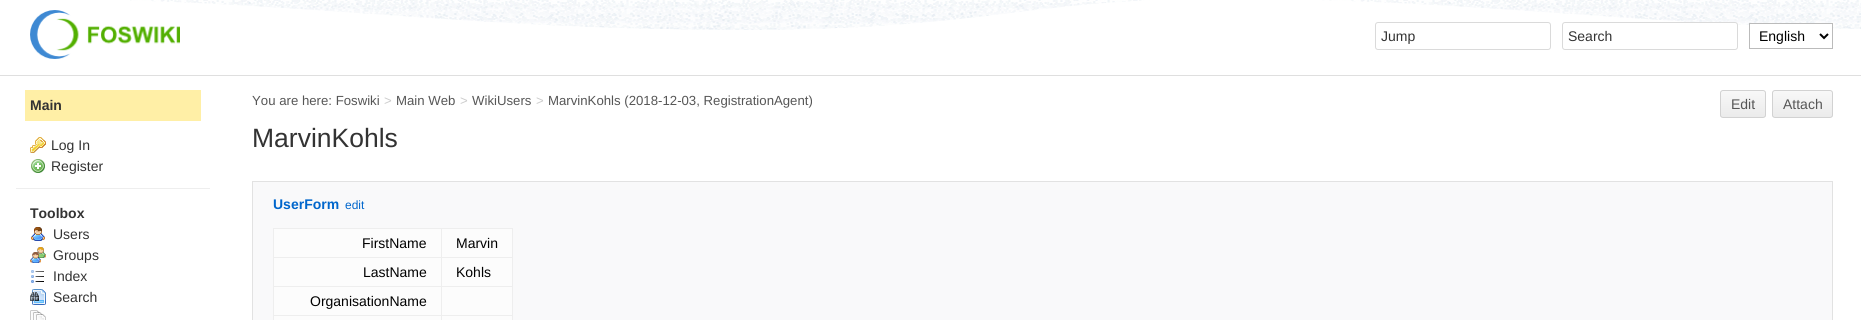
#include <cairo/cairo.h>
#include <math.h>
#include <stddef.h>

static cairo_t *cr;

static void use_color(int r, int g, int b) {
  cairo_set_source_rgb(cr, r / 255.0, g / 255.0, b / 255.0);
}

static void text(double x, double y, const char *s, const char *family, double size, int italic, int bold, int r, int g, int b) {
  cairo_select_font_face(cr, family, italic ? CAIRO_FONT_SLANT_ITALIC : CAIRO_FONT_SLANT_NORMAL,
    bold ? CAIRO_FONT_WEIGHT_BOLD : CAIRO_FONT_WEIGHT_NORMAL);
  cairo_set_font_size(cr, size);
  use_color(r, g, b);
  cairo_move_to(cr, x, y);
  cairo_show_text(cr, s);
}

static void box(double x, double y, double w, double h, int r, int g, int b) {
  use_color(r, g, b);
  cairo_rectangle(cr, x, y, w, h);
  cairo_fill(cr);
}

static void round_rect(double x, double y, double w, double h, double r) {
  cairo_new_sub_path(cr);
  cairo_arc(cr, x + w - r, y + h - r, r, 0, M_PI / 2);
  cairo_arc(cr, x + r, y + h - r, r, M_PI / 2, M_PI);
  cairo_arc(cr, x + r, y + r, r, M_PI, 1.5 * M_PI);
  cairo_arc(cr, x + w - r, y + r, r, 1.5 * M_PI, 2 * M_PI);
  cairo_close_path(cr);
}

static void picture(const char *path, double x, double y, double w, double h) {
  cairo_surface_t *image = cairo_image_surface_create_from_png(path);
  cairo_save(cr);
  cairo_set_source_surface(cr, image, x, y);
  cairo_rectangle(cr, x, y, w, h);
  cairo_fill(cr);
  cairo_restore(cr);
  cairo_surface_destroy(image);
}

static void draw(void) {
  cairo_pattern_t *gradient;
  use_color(223, 223, 223);
  cairo_paint(cr);
  box(0, 0, 1861, 75, 255, 255, 255);
  picture("img_01.png", 130, 0, 1731, 30);
  picture("img_02.png", 30, 10, 150, 49);
  round_rect(1375.5, 22.5, 175, 27, 2.5);
  use_color(218, 218, 218);
  cairo_set_line_width(cr, 1);
  cairo_stroke(cr);
  use_color(255, 255, 255);
  round_rect(1562.5, 22.5, 175, 27, 2.5);
  cairo_fill_preserve(cr);
  use_color(218, 218, 218);
  cairo_stroke(cr);
  box(1750, 24, 82, 5, 255, 255, 255);
  cairo_rectangle(cr, 1749.5, 23.5, 83, 25);
  use_color(187, 187, 187);
  cairo_stroke(cr);
  cairo_new_path(cr);
  cairo_move_to(cr, 1820, 34);
  cairo_line_to(cr, 1824, 38);
  cairo_line_to(cr, 1828, 34);
  use_color(0, 0, 0);
  cairo_set_line_width(cr, 2);
  cairo_stroke(cr);
  box(0, 76, 1861, 244, 255, 255, 255);
  box(25, 90, 176, 31, 255, 239, 166);
  box(16, 188, 194, 1, 238, 238, 238);
  picture("img_03.png", 30, 137, 16, 16);
  picture("img_04.png", 31, 159, 14, 14);
  picture("img_05.png", 31, 227, 14, 14);
  picture("img_06.png", 30, 247, 16, 16);
  picture("img_07.png", 31, 270, 13, 13);
  picture("img_08.png", 30, 289, 16, 16);
  picture("img_09.png", 30, 310, 16, 10);
  cairo_save(cr);
  round_rect(1720, 90, 46, 28, 3);
  cairo_clip(cr);
  gradient = cairo_pattern_create_linear(1743, 91, 1743, 117);
  cairo_pattern_add_color_stop_rgba(gradient, 0, 0.973, 0.973, 0.973, 1);
  cairo_pattern_add_color_stop_rgba(gradient, 1, 0.922, 0.922, 0.922, 1);
  cairo_set_source(cr, gradient);
  cairo_pattern_destroy(gradient);
  cairo_rectangle(cr, 1720, 91, 46, 26);
  cairo_fill(cr);
  cairo_restore(cr);
  round_rect(1720.5, 90.5, 45, 27, 2.5);
  use_color(210, 210, 210);
  cairo_set_line_width(cr, 1);
  cairo_stroke(cr);
  cairo_save(cr);
  round_rect(1772, 90, 61, 28, 3);
  cairo_clip(cr);
  gradient = cairo_pattern_create_linear(1803, 91, 1803, 117);
  cairo_pattern_add_color_stop_rgba(gradient, 0, 0.973, 0.973, 0.973, 1);
  cairo_pattern_add_color_stop_rgba(gradient, 1, 0.922, 0.922, 0.922, 1);
  cairo_set_source(cr, gradient);
  cairo_pattern_destroy(gradient);
  cairo_rectangle(cr, 1772, 91, 61, 26);
  cairo_fill(cr);
  cairo_restore(cr);
  round_rect(1772.5, 90.5, 60, 27, 2.5);
  cairo_stroke(cr);
  use_color(249, 249, 250);
  cairo_rectangle(cr, 252.5, 181.5, 1580, 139);
  cairo_fill_preserve(cr);
  use_color(226, 226, 226);
  cairo_stroke(cr);
  box(274, 229, 238, 91, 252, 252, 252);
  box(273, 228, 240, 1, 238, 238, 238);
  box(512, 228, 1, 92, 238, 238, 238);
  box(273, 228, 1, 92, 238, 238, 238);
  box(441, 257, 72, 1, 238, 238, 238);
  box(441, 286, 72, 1, 238, 238, 238);
  box(441, 315, 72, 1, 238, 238, 238);
  box(441, 315, 1, 5, 238, 238, 238);
  box(273, 315, 169, 1, 238, 238, 238);
  box(441, 286, 1, 30, 238, 238, 238);
  box(273, 286, 169, 1, 238, 238, 238);
  box(441, 257, 1, 30, 238, 238, 238);
  box(273, 257, 169, 1, 238, 238, 238);
  box(441, 228, 1, 30, 238, 238, 238);
  text(1381, 41, "Jump", "Liberation Sans", 14, 0, 0, 51, 51, 51);
  text(1568, 41, "Search", "Liberation Sans", 14, 0, 0, 51, 51, 51);
  text(1759, 41, "English", "Liberation Sans", 14, 0, 0, 0, 0, 0);
  text(30, 110, "Main", "Liberation Sans", 14, 0, 1, 51, 51, 51);
  text(51, 150, "Log In", "Liberation Sans", 14, 0, 0, 51, 51, 51);
  text(51, 171, "Register", "Liberation Sans", 14, 0, 0, 51, 51, 51);
  text(30, 218, "Toolbox", "Liberation Sans", 14, 0, 1, 51, 51, 51);
  text(53, 239, "Users", "Liberation Sans", 14, 0, 0, 51, 51, 51);
  text(53, 260, "Groups", "Liberation Sans", 14, 0, 0, 51, 51, 51);
  text(53, 281, "Index", "Liberation Sans", 14, 0, 0, 51, 51, 51);
  text(53, 302, "Search", "Liberation Sans", 14, 0, 0, 51, 51, 51);
  text(252, 105, "You are here: Foswiki", "Liberation Sans", 13.2, 0, 0, 86, 86, 86);
  text(384, 105, ">", "Liberation Sans", 13.2, 0, 0, 204, 204, 204);
  text(396, 105, "Main Web", "Liberation Sans", 13.2, 0, 0, 86, 86, 86);
  text(460, 105, ">", "Liberation Sans", 13.2, 0, 0, 204, 204, 204);
  text(472, 105, "WikiUsers", "Liberation Sans", 13.2, 0, 0, 86, 86, 86);
  text(536, 105, ">", "Liberation Sans", 13.2, 0, 0, 204, 204, 204);
  text(548, 105, "MarvinKohls (2018-12-03, RegistrationAgent)", "Liberation Sans", 13.2, 0, 0, 86, 86, 86);
  text(1731, 109, "Edit", "Liberation Sans", 14, 0, 0, 86, 86, 86);
  text(1783, 109, "Attach", "Liberation Sans", 14, 0, 0, 86, 86, 86);
  text(252, 147, "MarvinKohls", "Liberation Sans", 26.5, 0, 0, 51, 51, 51);
  text(273, 209, "UserForm", "Liberation Sans", 14, 0, 1, 0, 102, 204);
  text(345, 209, "edit", "Liberation Sans", 12, 0, 0, 0, 102, 204);
  text(362, 248, "FirstName", "Liberation Sans", 14, 0, 0, 0, 0, 0);
  text(456, 248, "Marvin", "Liberation Sans", 14, 0, 0, 0, 0, 0);
  text(363, 277, "LastName", "Liberation Sans", 14, 0, 0, 0, 0, 0);
  text(456, 277, "Kohls", "Liberation Sans", 14, 0, 0, 0, 0, 0);
  text(310, 306, "OrganisationName", "Liberation Sans", 14, 0, 0, 0, 0, 0);
}

int main(void) {
  cairo_surface_t *surface = cairo_image_surface_create(CAIRO_FORMAT_RGB24, 1861, 320);
  cr = cairo_create(surface);
  cairo_font_options_t *options = cairo_font_options_create();
  cairo_font_options_set_hint_metrics(options, CAIRO_HINT_METRICS_OFF);
  cairo_font_options_set_hint_style(options, CAIRO_HINT_STYLE_NONE);
  cairo_set_font_options(cr, options);
  cairo_set_miter_limit(cr, 4);
  draw();
  cairo_surface_write_to_png(surface, "out.png");
  cairo_font_options_destroy(options);
  cairo_destroy(cr);
  cairo_surface_destroy(surface);
  return 0;
}
